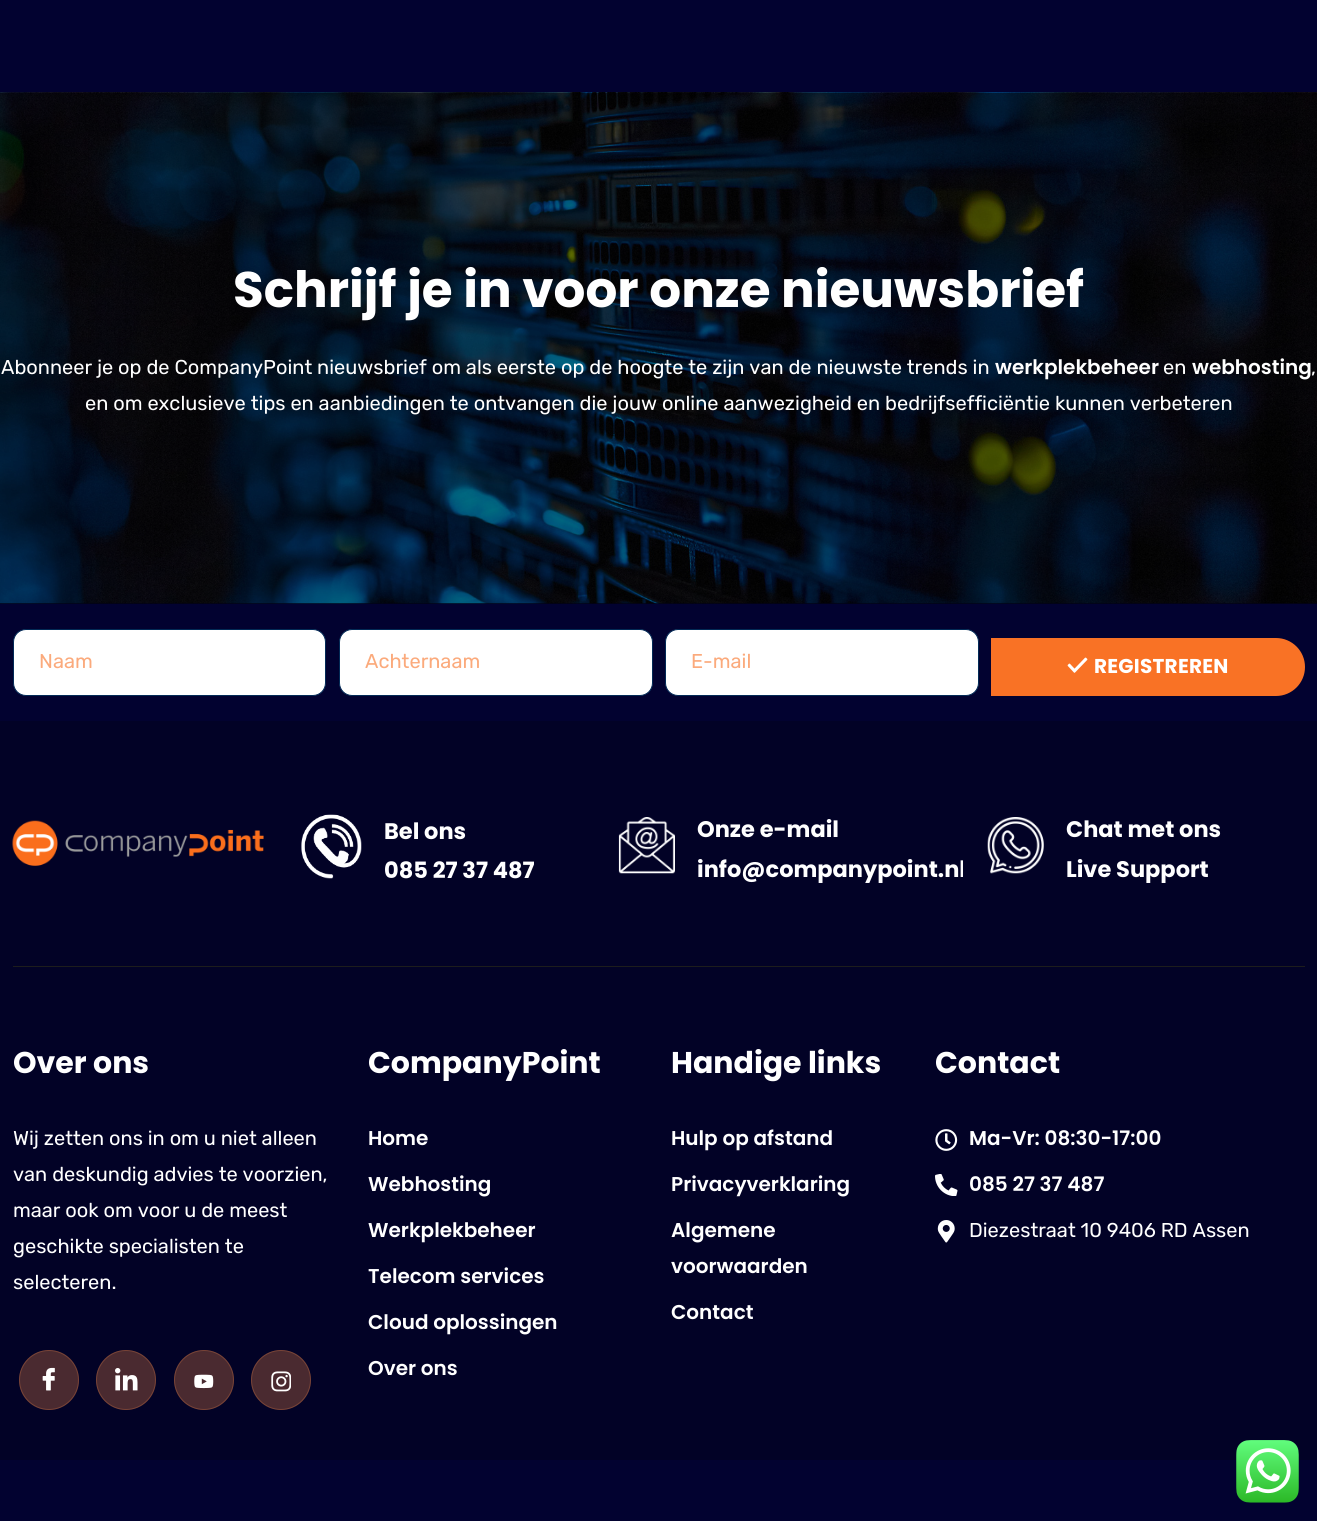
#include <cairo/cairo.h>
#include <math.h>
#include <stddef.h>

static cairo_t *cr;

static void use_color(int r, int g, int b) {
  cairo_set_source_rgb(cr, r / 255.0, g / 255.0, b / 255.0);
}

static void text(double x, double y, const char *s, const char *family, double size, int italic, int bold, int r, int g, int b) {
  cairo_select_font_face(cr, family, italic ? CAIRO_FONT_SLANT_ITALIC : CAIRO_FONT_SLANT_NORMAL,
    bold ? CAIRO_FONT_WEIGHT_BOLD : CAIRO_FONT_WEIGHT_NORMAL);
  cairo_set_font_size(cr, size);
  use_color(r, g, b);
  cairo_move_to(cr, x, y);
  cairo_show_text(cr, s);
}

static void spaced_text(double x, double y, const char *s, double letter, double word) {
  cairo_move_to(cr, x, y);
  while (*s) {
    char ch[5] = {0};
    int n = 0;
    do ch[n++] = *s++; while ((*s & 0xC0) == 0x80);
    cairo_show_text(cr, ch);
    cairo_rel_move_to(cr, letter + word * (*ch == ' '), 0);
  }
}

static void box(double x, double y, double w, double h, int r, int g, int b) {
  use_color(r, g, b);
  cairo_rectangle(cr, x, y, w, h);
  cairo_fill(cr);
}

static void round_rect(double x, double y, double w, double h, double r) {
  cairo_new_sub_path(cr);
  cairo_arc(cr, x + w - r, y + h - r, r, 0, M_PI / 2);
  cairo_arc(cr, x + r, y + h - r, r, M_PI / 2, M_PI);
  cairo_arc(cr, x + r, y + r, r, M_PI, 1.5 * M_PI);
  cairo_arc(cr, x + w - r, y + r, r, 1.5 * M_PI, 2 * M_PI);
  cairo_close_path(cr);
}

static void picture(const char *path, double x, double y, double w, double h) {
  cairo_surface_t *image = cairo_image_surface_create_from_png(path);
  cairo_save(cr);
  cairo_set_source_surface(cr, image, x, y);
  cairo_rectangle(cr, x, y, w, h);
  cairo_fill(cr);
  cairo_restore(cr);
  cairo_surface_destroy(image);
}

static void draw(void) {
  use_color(2, 2, 48);
  cairo_paint(cr);
  box(0, 603, 1317, 1, 1, 1, 24);
  picture("img_01.png", 0, 92, 1317, 512);
  use_color(255, 255, 255);
  round_rect(13.5, 629.5, 312, 66, 12.5);
  cairo_fill_preserve(cr);
  use_color(2, 42, 86);
  cairo_set_line_width(cr, 1);
  cairo_stroke(cr);
  use_color(255, 255, 255);
  round_rect(339.5, 629.5, 313, 66, 12.5);
  cairo_fill_preserve(cr);
  use_color(2, 42, 86);
  cairo_stroke(cr);
  use_color(255, 255, 255);
  round_rect(665.5, 629.5, 313, 66, 12.5);
  cairo_fill_preserve(cr);
  use_color(2, 42, 86);
  cairo_stroke(cr);
  use_color(249, 114, 37);
  cairo_new_path(cr);
  cairo_move_to(cr, 991, 638);
  cairo_line_to(cr, 1276, 638);
  cairo_curve_to(cr, 1292, 638, 1305, 651, 1305, 667);
  cairo_curve_to(cr, 1305, 683, 1292, 696, 1276, 696);
  cairo_line_to(cr, 991, 696);
  cairo_close_path(cr);
  cairo_fill(cr);
  picture("img_02.png", 1067, 657, 21, 16);
  box(0, 721, 1317, 739, 2, 2, 38);
  picture("img_03.png", 12, 820, 252, 46);
  picture("img_04.png", 301, 814, 61, 65);
  picture("img_05.png", 618, 817, 57, 57);
  picture("img_06.png", 987, 817, 57, 57);
  box(13, 966, 1292, 1, 29, 29, 29);
  use_color(74, 42, 48);
  cairo_arc(cr, 49, 1380, 30, 0, 2 * M_PI);
  cairo_fill(cr);
  cairo_arc(cr, 49, 1380, 29.5, 0, 2 * M_PI);
  cairo_set_source_rgba(cr, 0.835, 0.471, 0.267, 0.34);
  cairo_stroke(cr);
  picture("img_07.png", 42, 1367, 13, 24);
  use_color(74, 42, 48);
  cairo_arc(cr, 126, 1380, 30, 0, 2 * M_PI);
  cairo_fill(cr);
  cairo_arc(cr, 126, 1380, 29.5, 0, 2 * M_PI);
  cairo_set_source_rgba(cr, 0.835, 0.471, 0.267, 0.34);
  cairo_stroke(cr);
  picture("img_08.png", 115, 1368, 23, 23);
  use_color(74, 42, 48);
  cairo_arc(cr, 204, 1380, 30, 0, 2 * M_PI);
  cairo_fill(cr);
  cairo_arc(cr, 204, 1380, 29.5, 0, 2 * M_PI);
  cairo_set_source_rgba(cr, 0.835, 0.471, 0.267, 0.34);
  cairo_stroke(cr);
  picture("img_09.png", 194, 1374, 20, 15);
  use_color(74, 42, 48);
  cairo_arc(cr, 281, 1380, 30, 0, 2 * M_PI);
  cairo_fill(cr);
  cairo_arc(cr, 281, 1380, 29.5, 0, 2 * M_PI);
  cairo_set_source_rgba(cr, 0.835, 0.471, 0.267, 0.34);
  cairo_stroke(cr);
  picture("img_10.png", 271, 1371, 20, 21);
  picture("img_11.png", 935, 1129, 23, 22);
  picture("img_12.png", 935, 1174, 23, 22);
  picture("img_13.png", 937, 1220, 18, 23);
  picture("img_14.png", 1236, 1440, 63, 63);
  text(233, 307, "Schrijf je in voor onze nieuwsbrief", "Poppins", 50, 0, 1, 255, 255, 255);
  text(1, 374, "Abonneer je op de CompanyPoint nieuwsbrief om als eerste op de hoogte te zijn van de nieuwste trends in", "Rubik", 20, 0, 0, 255, 255, 255);
  text(995, 374, "werkplekbeheer", "Poppins SemiBold", 20, 0, 0, 255, 255, 255);
  text(1163, 374, "en", "Rubik", 20, 0, 0, 255, 255, 255);
  text(1192, 374, "webhosting", "Poppins SemiBold", 20, 0, 0, 255, 255, 255);
  text(1311, 374, ",", "Rubik", 20, 0, 0, 255, 255, 255);
  text(85, 410, "en om exclusieve tips en aanbiedingen te ontvangen die jouw online aanwezigheid en bedrijfsefficiëntie kunnen verbeteren", "Rubik", 20, 0, 0, 255, 255, 255);
  text(39, 668, "Naam", "Rubik", 20, 0, 0, 251, 170, 124);
  text(365, 668, "Achternaam", "Rubik", 20, 0, 0, 251, 170, 124);
  text(691, 668, "E-mail", "Rubik", 20, 0, 0, 251, 170, 124);
  cairo_select_font_face(cr, "Poppins", CAIRO_FONT_SLANT_NORMAL, CAIRO_FONT_WEIGHT_BOLD);
  use_color(255, 255, 255);
  spaced_text(1094, 673, "REGISTREREN", 0.25, 0);
  text(384, 839, "Bel ons", "Poppins", 22.5, 0, 1, 255, 255, 255);
  text(384, 878, "085 27 37 487", "Poppins", 22.5, 0, 1, 255, 255, 255);
  text(697, 837, "Onze e-mail", "Poppins", 22.5, 0, 1, 255, 255, 255);
  cairo_save(cr);
  round_rect(619, 815, 344, 73, 6);
  cairo_clip(cr);
  text(697, 877, "info@companypoint.nl", "Poppins", 22.5, 0, 1, 255, 255, 255);
  cairo_restore(cr);
  text(1066, 837, "Chat met ons", "Poppins", 22.5, 0, 1, 255, 255, 255);
  text(1066, 877, "Live Support", "Poppins", 22.5, 0, 1, 255, 255, 255);
  text(13, 1073, "Over ons", "Poppins", 30, 0, 1, 255, 255, 255);
  text(13, 1145, "Wij zetten ons in om u niet alleen", "Rubik", 20, 0, 0, 255, 255, 255);
  text(13, 1181, "van deskundig advies te voorzien,", "Rubik", 20, 0, 0, 255, 255, 255);
  text(13, 1217, "maar ook om voor u de meest", "Rubik", 20, 0, 0, 255, 255, 255);
  text(13, 1253, "geschikte specialisten te", "Rubik", 20, 0, 0, 255, 255, 255);
  text(13, 1289, "selecteren.", "Rubik", 20, 0, 0, 255, 255, 255);
  text(368, 1073, "CompanyPoint", "Poppins", 30, 0, 1, 255, 255, 255);
  text(368, 1145, "Home", "Poppins SemiBold", 20, 0, 0, 255, 255, 255);
  text(368, 1191, "Webhosting", "Poppins SemiBold", 20, 0, 0, 255, 255, 255);
  text(368, 1237, "Werkplekbeheer", "Poppins SemiBold", 20, 0, 0, 255, 255, 255);
  text(368, 1283, "Telecom services", "Poppins SemiBold", 20, 0, 0, 255, 255, 255);
  text(368, 1329, "Cloud oplossingen", "Poppins SemiBold", 20, 0, 0, 255, 255, 255);
  text(368, 1375, "Over ons", "Poppins SemiBold", 20, 0, 0, 255, 255, 255);
  text(671, 1073, "Handige links", "Poppins", 30, 0, 1, 255, 255, 255);
  text(671, 1145, "Hulp op afstand", "Poppins SemiBold", 20, 0, 0, 255, 255, 255);
  text(671, 1191, "Privacyverklaring", "Poppins SemiBold", 20, 0, 0, 255, 255, 255);
  text(671, 1237, "Algemene", "Poppins SemiBold", 20, 0, 0, 255, 255, 255);
  text(671, 1273, "voorwaarden", "Poppins SemiBold", 20, 0, 0, 255, 255, 255);
  text(671, 1319, "Contact", "Poppins SemiBold", 20, 0, 0, 255, 255, 255);
  text(935, 1073, "Contact", "Poppins", 30, 0, 1, 255, 255, 255);
  text(969, 1145, "Ma-Vr: 08:30-17:00", "Poppins SemiBold", 20, 0, 0, 255, 255, 255);
  text(969, 1191, "085 27 37 487", "Poppins SemiBold", 20, 0, 0, 255, 255, 255);
  text(969, 1237, "Diezestraat 10 9406 RD Assen", "Rubik", 20, 0, 0, 255, 255, 255);
}

int main(void) {
  cairo_surface_t *surface = cairo_image_surface_create(CAIRO_FORMAT_RGB24, 1317, 1521);
  cr = cairo_create(surface);
  cairo_font_options_t *options = cairo_font_options_create();
  cairo_font_options_set_hint_metrics(options, CAIRO_HINT_METRICS_OFF);
  cairo_font_options_set_hint_style(options, CAIRO_HINT_STYLE_NONE);
  cairo_set_font_options(cr, options);
  cairo_set_miter_limit(cr, 4);
  draw();
  cairo_surface_write_to_png(surface, "out.png");
  cairo_font_options_destroy(options);
  cairo_destroy(cr);
  cairo_surface_destroy(surface);
  return 0;
}
